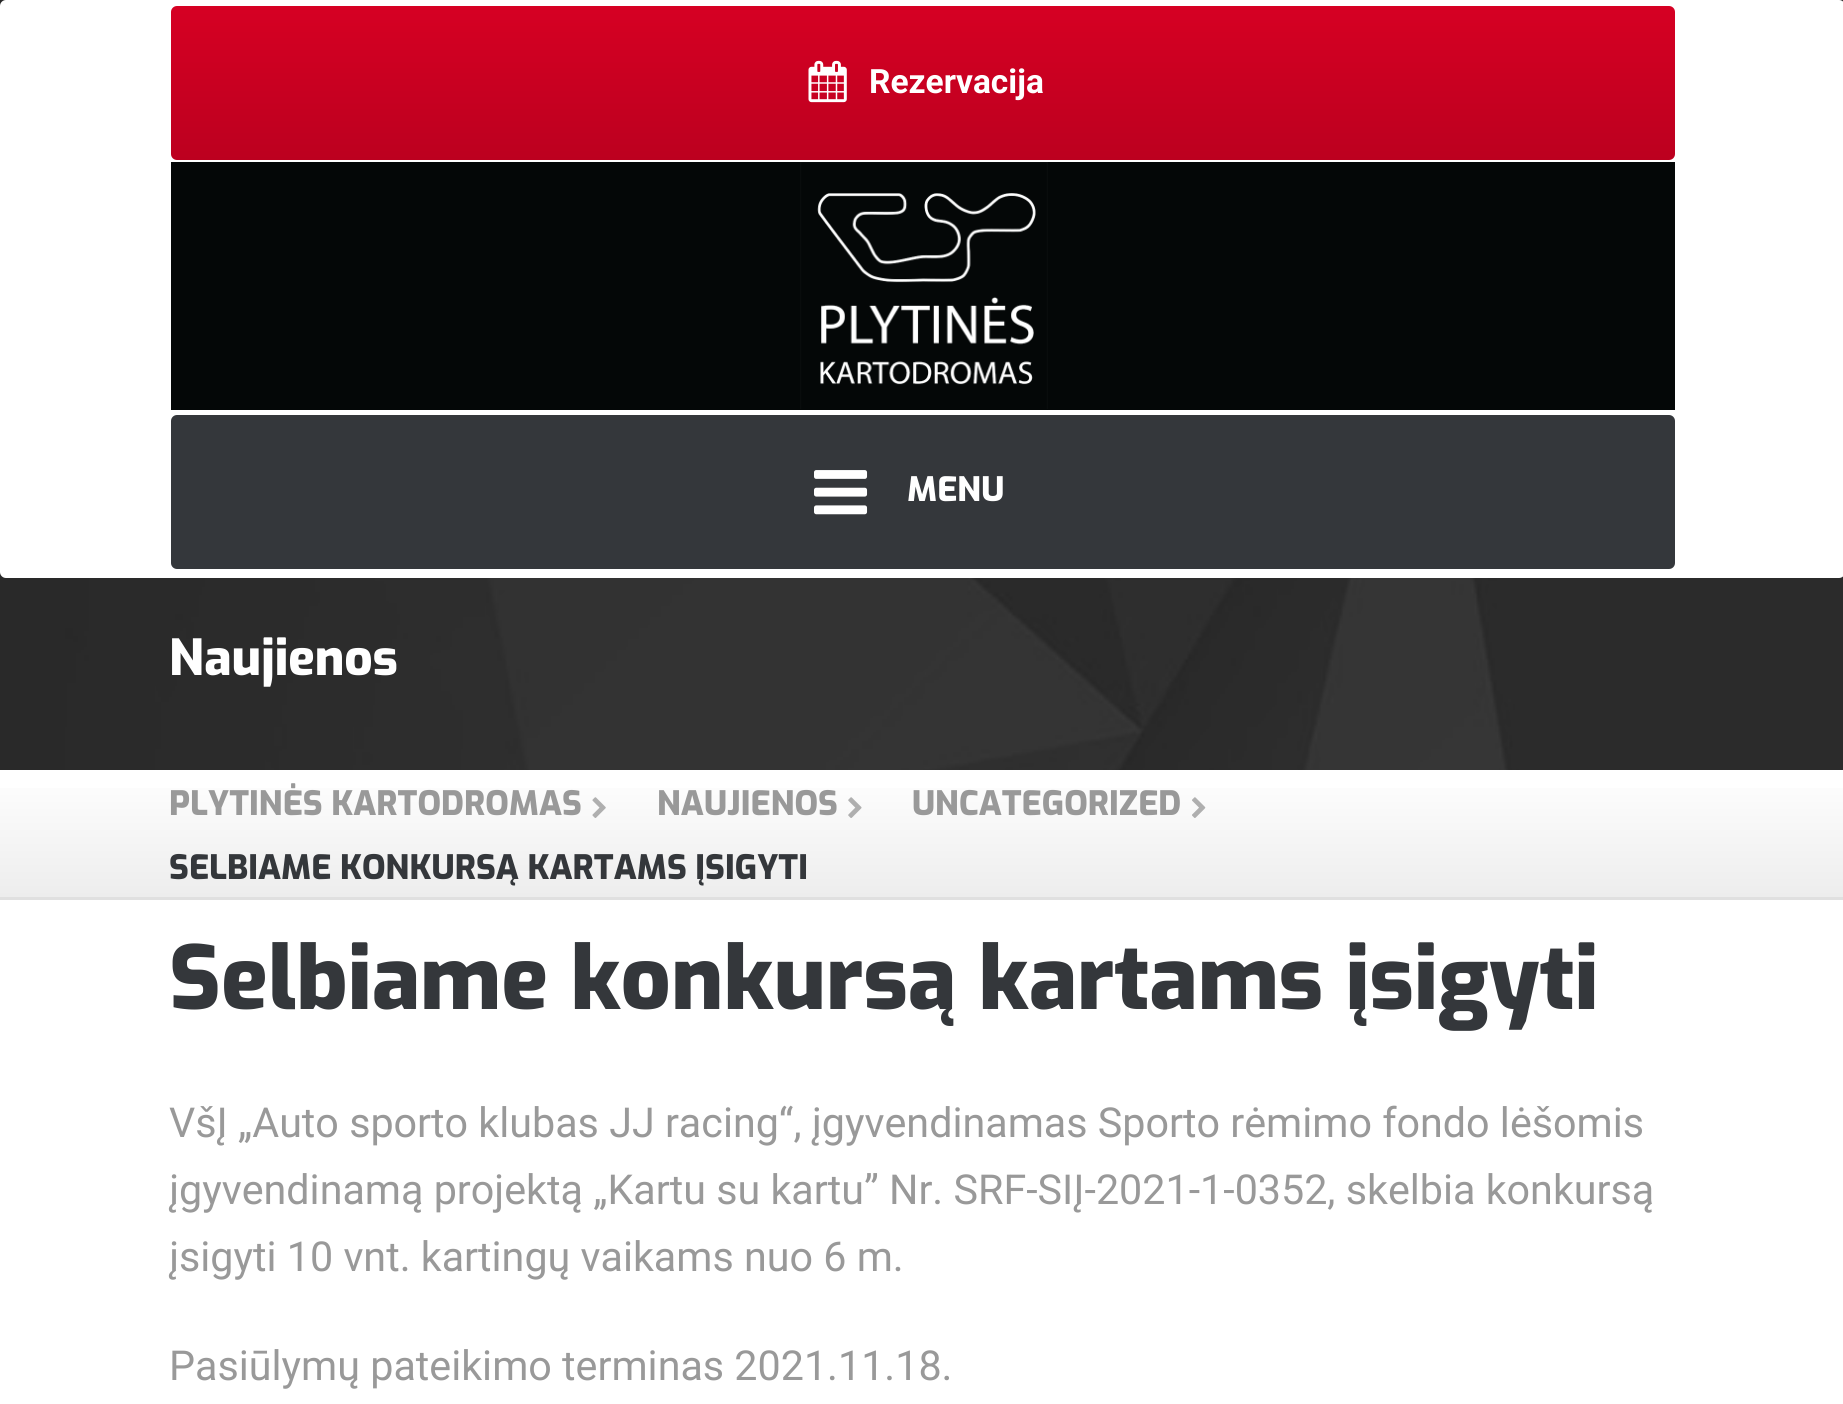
#include <cairo/cairo.h>
#include <math.h>
#include <stddef.h>

static cairo_t *cr;

static void use_color(int r, int g, int b) {
  cairo_set_source_rgb(cr, r / 255.0, g / 255.0, b / 255.0);
}

static void text(double x, double y, const char *s, const char *family, double size, int italic, int bold, int r, int g, int b) {
  cairo_select_font_face(cr, family, italic ? CAIRO_FONT_SLANT_ITALIC : CAIRO_FONT_SLANT_NORMAL,
    bold ? CAIRO_FONT_WEIGHT_BOLD : CAIRO_FONT_WEIGHT_NORMAL);
  cairo_set_font_size(cr, size);
  use_color(r, g, b);
  cairo_move_to(cr, x, y);
  cairo_show_text(cr, s);
}

static void box(double x, double y, double w, double h, int r, int g, int b) {
  use_color(r, g, b);
  cairo_rectangle(cr, x, y, w, h);
  cairo_fill(cr);
}

static void round_rect(double x, double y, double w, double h, double r) {
  cairo_new_sub_path(cr);
  cairo_arc(cr, x + w - r, y + h - r, r, 0, M_PI / 2);
  cairo_arc(cr, x + r, y + h - r, r, M_PI / 2, M_PI);
  cairo_arc(cr, x + r, y + r, r, M_PI, 1.5 * M_PI);
  cairo_arc(cr, x + w - r, y + r, r, 1.5 * M_PI, 2 * M_PI);
  cairo_close_path(cr);
}

static void picture(const char *path, double x, double y, double w, double h) {
  cairo_surface_t *image = cairo_image_surface_create_from_png(path);
  cairo_save(cr);
  cairo_set_source_surface(cr, image, x, y);
  cairo_rectangle(cr, x, y, w, h);
  cairo_fill(cr);
  cairo_restore(cr);
  cairo_surface_destroy(image);
}

static void draw(void) {
  cairo_pattern_t *gradient;
  use_color(255, 255, 255);
  cairo_paint(cr);
  picture("img_01.png", 0, 0, 1843, 770);
  use_color(255, 255, 255);
  round_rect(0, 0, 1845, 578, 6);
  cairo_fill(cr);
  gradient = cairo_pattern_create_linear(923, 160, 923, 5.5);
  cairo_pattern_add_color_stop_rgba(gradient, 0, 0.737, 0, 0.122, 1);
  cairo_pattern_add_color_stop_rgba(gradient, 1, 0.839, 0, 0.137, 1);
  cairo_set_source(cr, gradient);
  cairo_pattern_destroy(gradient);
  round_rect(171, 6, 1504, 154, 6);
  cairo_fill(cr);
  picture("img_02.png", 808, 60, 39, 43);
  box(171, 162, 1504, 248, 4, 7, 7);
  picture("img_03.png", 800, 162, 248, 247);
  use_color(52, 55, 59);
  round_rect(171, 415, 1504, 154, 6);
  cairo_fill(cr);
  picture("img_04.png", 814, 470, 54, 45);
  gradient = cairo_pattern_create_linear(923, 770, 923, 897);
  cairo_pattern_add_color_stop_rgba(gradient, 0, 1, 1, 1, 1);
  cairo_pattern_add_color_stop_rgba(gradient, 1, 0.929, 0.929, 0.929, 1);
  cairo_set_source(cr, gradient);
  cairo_pattern_destroy(gradient);
  cairo_rectangle(cr, 0, 788, 1843, 109);
  cairo_fill(cr);
  box(0, 897, 1843, 3, 224, 224, 224);
  picture("img_05.png", 592, 797, 14, 21);
  picture("img_06.png", 848, 797, 14, 21);
  picture("img_07.png", 1192, 797, 14, 21);
  text(869, 93, "Rezervacija", "Roboto", 33.5, 0, 1, 255, 255, 255);
  text(907, 501, "MENU", "Exo ExtraBold", 33.5, 0, 0, 255, 255, 255);
  text(169, 675, "Naujienos", "Exo ExtraBold", 49.5, 0, 0, 255, 255, 255);
  text(169, 815, "PLYTINĖS KARTODROMAS", "Exo ExtraBold", 33.5, 0, 0, 153, 153, 153);
  text(657, 815, "NAUJIENOS", "Exo ExtraBold", 33.5, 0, 0, 153, 153, 153);
  text(912, 815, "UNCATEGORIZED", "Exo ExtraBold", 33.5, 0, 0, 153, 153, 153);
  text(169, 879, "SELBIAME KONKURSĄ KARTAMS ĮSIGYTI", "Exo ExtraBold", 33.5, 0, 0, 52, 55, 59);
  text(169, 1009, "Selbiame konkursą kartams įsigyti", "Exo ExtraBold", 87.7, 0, 0, 52, 55, 59);
  text(169, 1137, "VšĮ „Auto sporto klubas JJ racing“, įgyvendinamas Sporto rėmimo fondo lėšomis", "Roboto", 41.25, 0, 0, 153, 153, 153);
  text(169, 1204, "įgyvendinamą projektą „Kartu su kartu” Nr. SRF-SIĮ-2021-1-0352, skelbia konkursą", "Roboto", 41.25, 0, 0, 153, 153, 153);
  text(169, 1271, "įsigyti 10 vnt. kartingų vaikams nuo 6 m.", "Roboto", 41.25, 0, 0, 153, 153, 153);
  text(169, 1380, "Pasiūlymų pateikimo terminas 2021.11.18.", "Roboto", 41.25, 0, 0, 153, 153, 153);
}

int main(void) {
  cairo_surface_t *surface = cairo_image_surface_create(CAIRO_FORMAT_RGB24, 1843, 1404);
  cr = cairo_create(surface);
  cairo_font_options_t *options = cairo_font_options_create();
  cairo_font_options_set_hint_metrics(options, CAIRO_HINT_METRICS_OFF);
  cairo_font_options_set_hint_style(options, CAIRO_HINT_STYLE_NONE);
  cairo_set_font_options(cr, options);
  cairo_set_miter_limit(cr, 4);
  draw();
  cairo_surface_write_to_png(surface, "out.png");
  cairo_font_options_destroy(options);
  cairo_destroy(cr);
  cairo_surface_destroy(surface);
  return 0;
}
